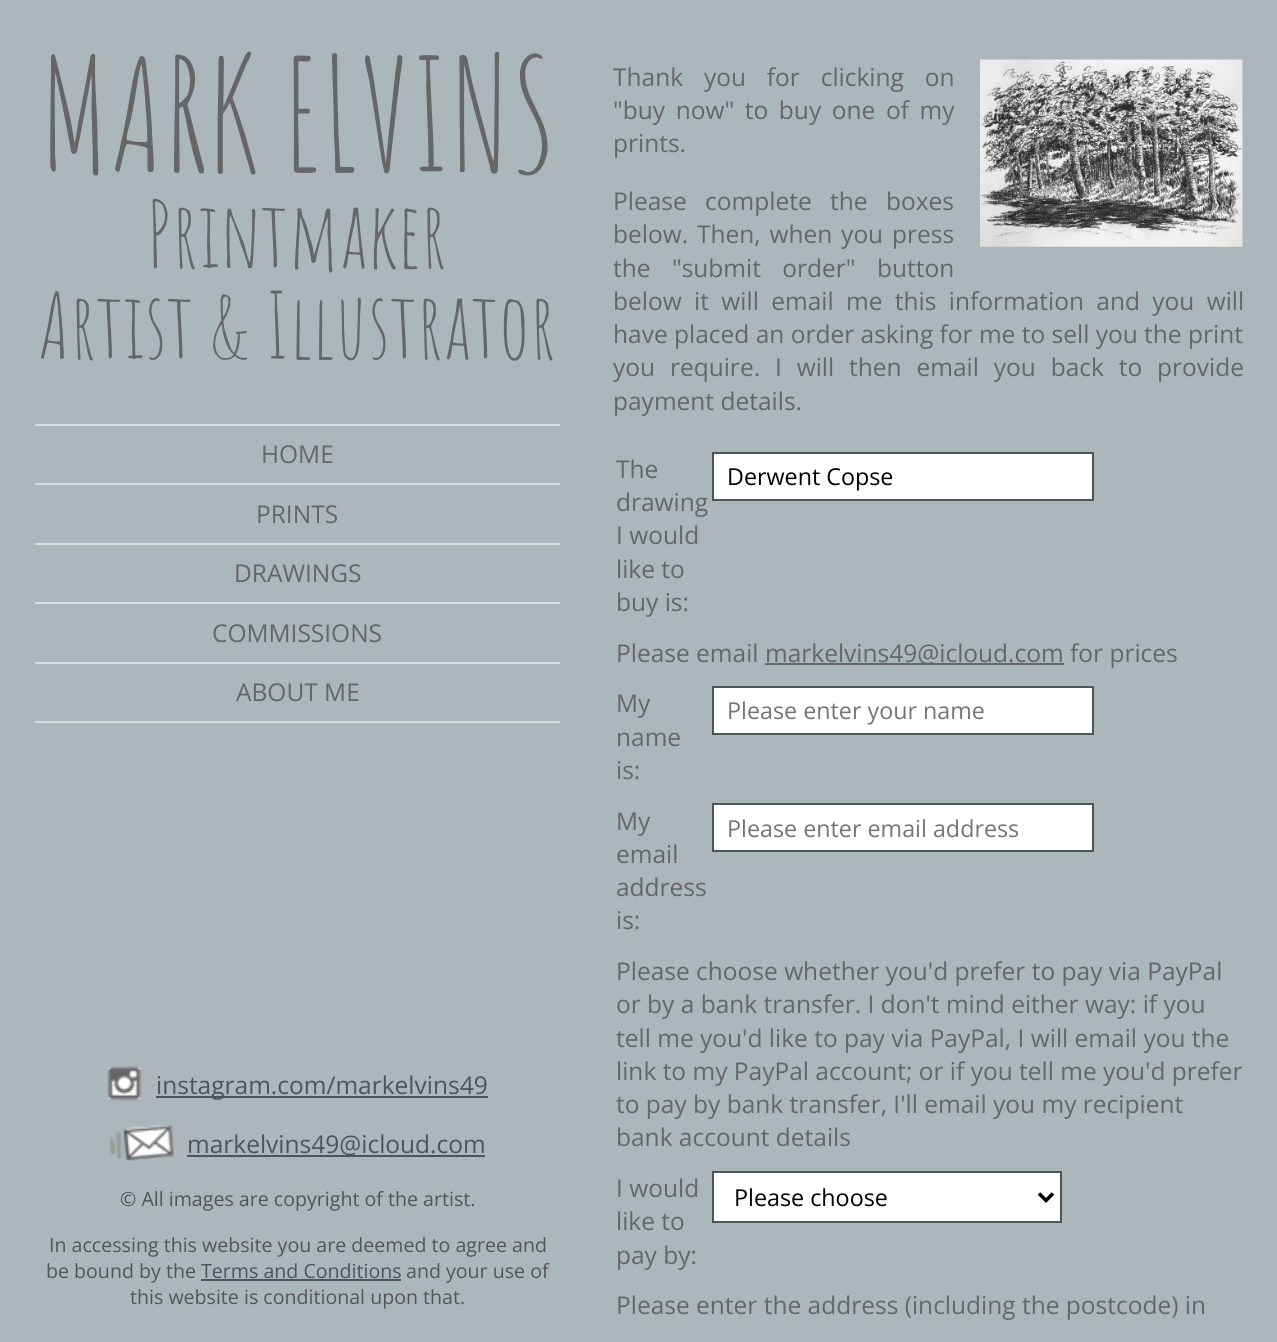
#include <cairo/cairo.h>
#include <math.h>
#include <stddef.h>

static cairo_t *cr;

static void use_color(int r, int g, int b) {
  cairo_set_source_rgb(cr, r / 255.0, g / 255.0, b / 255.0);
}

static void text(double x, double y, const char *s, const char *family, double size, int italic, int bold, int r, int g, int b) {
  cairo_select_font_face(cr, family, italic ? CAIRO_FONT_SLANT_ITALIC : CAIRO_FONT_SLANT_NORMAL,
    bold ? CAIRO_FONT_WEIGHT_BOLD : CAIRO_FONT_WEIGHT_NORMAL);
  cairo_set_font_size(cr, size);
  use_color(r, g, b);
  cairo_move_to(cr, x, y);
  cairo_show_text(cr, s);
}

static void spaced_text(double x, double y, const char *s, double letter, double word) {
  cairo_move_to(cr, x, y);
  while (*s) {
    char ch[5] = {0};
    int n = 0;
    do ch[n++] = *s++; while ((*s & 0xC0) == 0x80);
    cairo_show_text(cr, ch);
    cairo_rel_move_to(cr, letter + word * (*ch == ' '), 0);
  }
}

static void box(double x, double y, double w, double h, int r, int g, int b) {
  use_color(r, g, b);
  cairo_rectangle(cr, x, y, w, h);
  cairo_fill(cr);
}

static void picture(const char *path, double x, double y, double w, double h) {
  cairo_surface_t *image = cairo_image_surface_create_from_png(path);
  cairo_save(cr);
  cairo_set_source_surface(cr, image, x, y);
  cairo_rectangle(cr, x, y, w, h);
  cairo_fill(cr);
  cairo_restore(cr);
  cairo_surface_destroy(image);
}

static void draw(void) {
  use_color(172, 183, 187);
  cairo_paint(cr);
  box(35, 721, 525, 2, 216, 220, 222);
  box(35, 424, 525, 2, 216, 220, 222);
  box(35, 483, 525, 2, 216, 220, 222);
  box(35, 543, 525, 2, 216, 220, 222);
  box(35, 602, 525, 2, 216, 220, 222);
  box(35, 662, 525, 2, 216, 220, 222);
  picture("img_01.png", 107, 1066, 35, 35);
  box(156, 1096, 332, 2, 73, 86, 90);
  picture("img_02.png", 109, 1125, 65, 36);
  box(187, 1155, 298, 2, 73, 86, 90);
  box(201, 1279, 200, 2, 73, 86, 90);
  picture("img_03.png", 980, 59, 263, 188);
  use_color(255, 255, 255);
  cairo_rectangle(cr, 713, 453, 380, 47);
  cairo_fill_preserve(cr);
  use_color(73, 86, 90);
  cairo_stroke(cr);
  box(765, 663, 299, 2, 102, 102, 102);
  use_color(255, 255, 255);
  cairo_rectangle(cr, 713, 687, 380, 47);
  cairo_fill_preserve(cr);
  use_color(73, 86, 90);
  cairo_stroke(cr);
  use_color(255, 255, 255);
  cairo_rectangle(cr, 713, 804, 380, 47);
  cairo_fill_preserve(cr);
  use_color(73, 86, 90);
  cairo_stroke(cr);
  use_color(255, 255, 255);
  cairo_rectangle(cr, 713, 1172, 348, 50);
  cairo_fill_preserve(cr);
  use_color(73, 86, 90);
  cairo_stroke(cr);
  cairo_new_path(cr);
  cairo_move_to(cr, 1039, 1193.5);
  cairo_line_to(cr, 1046, 1200.5);
  cairo_line_to(cr, 1053, 1193.5);
  use_color(0, 0, 0);
  cairo_set_line_width(cr, 3.5);
  cairo_stroke(cr);
  text(39, 172, "MARK ELVINS", "Amatic SC", 154.5, 0, 0, 102, 102, 102);
  text(147, 268, "Printmaker", "Amatic SC", 90.5, 0, 0, 102, 102, 102);
  text(38, 359, "Artist & Illustrator", "Amatic SC", 90.5, 0, 0, 102, 102, 102);
  text(261, 463, "HOME", "Open Sans", 24.5, 0, 0, 102, 102, 102);
  text(256, 523, "PRINTS", "Open Sans", 24.5, 0, 0, 102, 102, 102);
  text(234, 582, "DRAWINGS", "Open Sans", 24.5, 0, 0, 102, 102, 102);
  text(212, 642, "COMMISSIONS", "Open Sans", 24.5, 0, 0, 102, 102, 102);
  text(236, 701, "ABOUT ME", "Open Sans", 24.5, 0, 0, 102, 102, 102);
  text(156, 1094, "instagram.com/markelvins49", "Open Sans", 24.5, 0, 0, 73, 86, 90);
  text(187, 1153, "markelvins49@icloud.com", "Open Sans", 24.5, 0, 0, 73, 86, 90);
  text(120, 1206, "© All images are copyright of the artist.", "Open Sans", 19.6, 0, 0, 85, 85, 85);
  text(49, 1252, "In accessing this website you are deemed to agree and", "Open Sans", 19.6, 0, 0, 85, 85, 85);
  text(46, 1278, "be bound by the", "Open Sans", 19.6, 0, 0, 85, 85, 85);
  text(201, 1278, "Terms and Conditions", "Open Sans", 19.6, 0, 0, 73, 86, 90);
  text(406, 1278, "and your use of", "Open Sans", 19.6, 0, 0, 85, 85, 85);
  text(130, 1304, "this website is conditional upon that.", "Open Sans", 19.6, 0, 0, 85, 85, 85);
  cairo_set_font_size(cr, 24.5);
  use_color(102, 102, 102);
  spaced_text(613, 86, "Thank you for clicking on", 0, 14.5);
  spaced_text(613, 119, "\"buy now\" to buy one of my", 0, 4.25);
  text(613, 152, "prints.", "Open Sans", 24.5, 0, 0, 102, 102, 102);
  spaced_text(613, 210, "Please complete the boxes", 0, 12);
  spaced_text(613, 243, "below. Then, when you press", 0, 2.5);
  spaced_text(613, 277, "the \"submit order\" button", 0, 15);
  spaced_text(613, 310, "below it will email me this information and you will", 0, 6);
  text(613, 343, "have placed an order asking for me to sell you the print", "Open Sans", 24.5, 0, 0, 102, 102, 102);
  spaced_text(613, 376, "you require. I will then email you back to provide", 0, 8.5);
  text(613, 410, "payment details.", "Open Sans", 24.5, 0, 0, 102, 102, 102);
  text(616, 478, "The", "Open Sans", 24.5, 0, 0, 102, 102, 102);
  text(616, 511, "drawing", "Open Sans", 24.5, 0, 0, 102, 102, 102);
  text(616, 544, "I would", "Open Sans", 24.5, 0, 0, 102, 102, 102);
  text(616, 578, "like to", "Open Sans", 24.5, 0, 0, 102, 102, 102);
  text(616, 611, "buy is:", "Open Sans", 24.5, 0, 0, 102, 102, 102);
  text(727, 485, "Derwent Copse", "Open Sans", 23.3, 0, 0, 0, 0, 0);
  text(616, 662, "Please email", "Open Sans", 24.5, 0, 0, 102, 102, 102);
  text(765, 662, "markelvins49@icloud.com for prices", "Open Sans", 24.5, 0, 0, 102, 102, 102);
  text(616, 712, "My", "Open Sans", 24.5, 0, 0, 102, 102, 102);
  text(616, 746, "name", "Open Sans", 24.5, 0, 0, 102, 102, 102);
  text(616, 779, "is:", "Open Sans", 24.5, 0, 0, 102, 102, 102);
  text(727, 719, "Please enter your name", "Open Sans", 23.3, 0, 0, 117, 117, 117);
  text(616, 830, "My", "Open Sans", 24.5, 0, 0, 102, 102, 102);
  text(616, 863, "email", "Open Sans", 24.5, 0, 0, 102, 102, 102);
  text(616, 896, "address", "Open Sans", 24.5, 0, 0, 102, 102, 102);
  text(616, 929, "is:", "Open Sans", 24.5, 0, 0, 102, 102, 102);
  text(727, 837, "Please enter email address", "Open Sans", 23.3, 0, 0, 117, 117, 117);
  text(616, 980, "Please choose whether you'd prefer to pay via PayPal", "Open Sans", 24.5, 0, 0, 102, 102, 102);
  text(616, 1013, "or by a bank transfer. I don't mind either way: if you", "Open Sans", 24.5, 0, 0, 102, 102, 102);
  text(616, 1047, "tell me you'd like to pay via PayPal, I will email you the", "Open Sans", 24.5, 0, 0, 102, 102, 102);
  text(616, 1080, "link to my PayPal account; or if you tell me you'd prefer", "Open Sans", 24.5, 0, 0, 102, 102, 102);
  text(616, 1113, "to pay by bank transfer, I'll email you my recipient", "Open Sans", 24.5, 0, 0, 102, 102, 102);
  text(616, 1146, "bank account details", "Open Sans", 24.5, 0, 0, 102, 102, 102);
  text(616, 1197, "I would", "Open Sans", 24.5, 0, 0, 102, 102, 102);
  text(616, 1230, "like to", "Open Sans", 24.5, 0, 0, 102, 102, 102);
  text(616, 1264, "pay by:", "Open Sans", 24.5, 0, 0, 102, 102, 102);
  text(734, 1206, "Please choose", "Open Sans", 23.3, 0, 0, 0, 0, 0);
  text(616, 1314, "Please enter the address (including the postcode) in", "Open Sans", 24.5, 0, 0, 102, 102, 102);
}

int main(void) {
  cairo_surface_t *surface = cairo_image_surface_create(CAIRO_FORMAT_RGB24, 1277, 1342);
  cr = cairo_create(surface);
  cairo_font_options_t *options = cairo_font_options_create();
  cairo_font_options_set_hint_metrics(options, CAIRO_HINT_METRICS_OFF);
  cairo_font_options_set_hint_style(options, CAIRO_HINT_STYLE_NONE);
  cairo_set_font_options(cr, options);
  cairo_set_miter_limit(cr, 4);
  draw();
  cairo_surface_write_to_png(surface, "out.png");
  cairo_font_options_destroy(options);
  cairo_destroy(cr);
  cairo_surface_destroy(surface);
  return 0;
}
